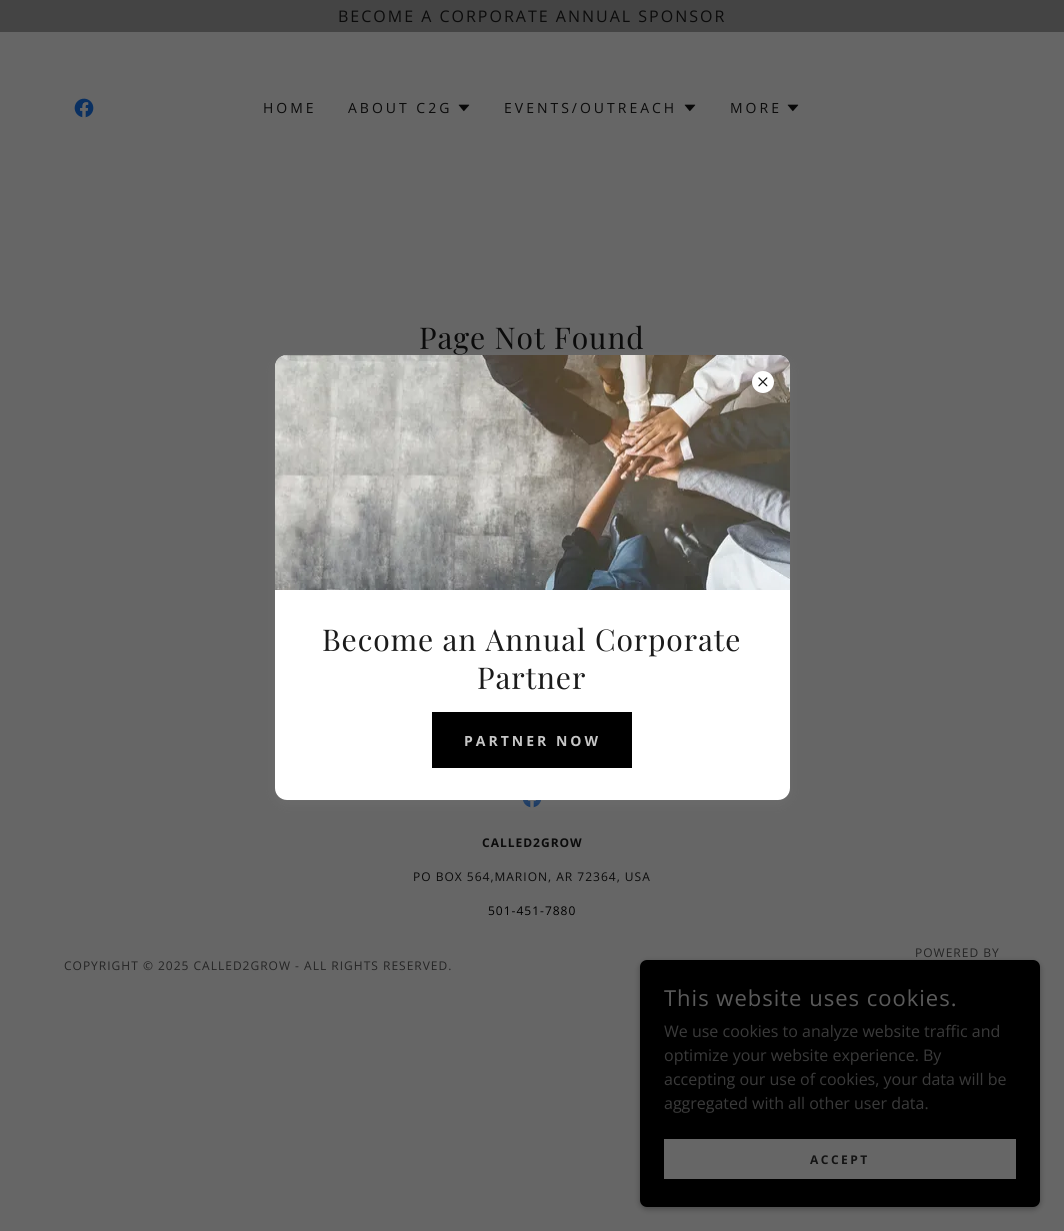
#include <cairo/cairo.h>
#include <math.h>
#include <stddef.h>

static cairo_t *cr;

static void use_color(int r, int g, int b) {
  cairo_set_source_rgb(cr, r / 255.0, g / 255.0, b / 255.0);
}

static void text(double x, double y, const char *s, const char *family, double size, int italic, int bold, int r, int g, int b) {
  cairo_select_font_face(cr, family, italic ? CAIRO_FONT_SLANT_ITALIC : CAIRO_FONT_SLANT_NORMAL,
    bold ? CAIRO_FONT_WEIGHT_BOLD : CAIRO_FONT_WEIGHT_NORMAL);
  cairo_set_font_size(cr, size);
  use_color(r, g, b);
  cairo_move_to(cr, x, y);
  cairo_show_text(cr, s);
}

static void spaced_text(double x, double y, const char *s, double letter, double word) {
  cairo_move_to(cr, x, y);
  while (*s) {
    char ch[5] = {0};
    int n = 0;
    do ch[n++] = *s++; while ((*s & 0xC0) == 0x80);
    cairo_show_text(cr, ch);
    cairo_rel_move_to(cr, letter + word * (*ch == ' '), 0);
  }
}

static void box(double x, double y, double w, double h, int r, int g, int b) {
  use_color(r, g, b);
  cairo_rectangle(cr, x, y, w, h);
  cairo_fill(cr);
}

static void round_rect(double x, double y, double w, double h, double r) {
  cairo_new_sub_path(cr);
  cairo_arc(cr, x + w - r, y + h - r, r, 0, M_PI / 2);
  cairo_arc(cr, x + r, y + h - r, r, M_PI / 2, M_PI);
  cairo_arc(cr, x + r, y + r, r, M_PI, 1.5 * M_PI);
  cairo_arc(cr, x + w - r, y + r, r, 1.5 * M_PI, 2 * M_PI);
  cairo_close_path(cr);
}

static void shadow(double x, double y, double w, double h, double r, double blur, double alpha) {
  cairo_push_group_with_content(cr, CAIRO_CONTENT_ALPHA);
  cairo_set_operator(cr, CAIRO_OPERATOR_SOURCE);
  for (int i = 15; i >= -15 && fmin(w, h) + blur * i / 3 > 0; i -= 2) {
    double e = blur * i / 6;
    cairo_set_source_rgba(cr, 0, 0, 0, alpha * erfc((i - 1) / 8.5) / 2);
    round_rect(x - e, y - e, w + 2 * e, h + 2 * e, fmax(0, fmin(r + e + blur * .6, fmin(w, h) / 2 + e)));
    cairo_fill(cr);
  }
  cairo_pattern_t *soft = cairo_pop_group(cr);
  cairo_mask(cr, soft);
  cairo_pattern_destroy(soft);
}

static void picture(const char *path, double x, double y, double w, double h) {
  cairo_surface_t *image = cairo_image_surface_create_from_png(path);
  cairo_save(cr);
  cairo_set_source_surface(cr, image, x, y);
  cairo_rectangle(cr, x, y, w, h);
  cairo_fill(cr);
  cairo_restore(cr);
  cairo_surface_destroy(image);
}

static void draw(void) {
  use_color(102, 102, 102);
  cairo_paint(cr);
  box(0, 0, 1064, 32, 68, 68, 68);
  picture("img_01.png", 74, 98, 20, 20);
  picture("img_02.png", 458, 104, 12, 8);
  picture("img_02.png", 684, 104, 12, 8);
  picture("img_02.png", 787, 104, 12, 8);
  picture("img_05.png", 523, 800, 18, 8);
  use_color(117, 117, 117);
  shadow(275, 359, 515, 445, 12, 6, 0.4);
  use_color(255, 255, 255);
  round_rect(275, 355, 515, 445, 12);
  cairo_fill(cr);
  picture("img_04.png", 275, 355, 515, 235);
  cairo_arc(cr, 763, 382, 11, 0, 2 * M_PI);
  cairo_fill(cr);
  picture("img_03.png", 758, 377, 10, 10);
  box(432, 712, 200, 56, 0, 0, 0);
  use_color(0, 0, 0);
  shadow(640, 962, 400, 247, 7, 3, 0.3);
  use_color(0, 0, 0);
  round_rect(640, 960, 400, 247, 7);
  cairo_fill(cr);
  box(664, 1139, 352, 40, 102, 102, 102);
  cairo_select_font_face(cr, "Open Sans", CAIRO_FONT_SLANT_NORMAL, CAIRO_FONT_WEIGHT_NORMAL);
  cairo_set_font_size(cr, 16);
  use_color(11, 11, 11);
  spaced_text(338, 22, "BECOME A CORPORATE ANNUAL SPONSOR", 2, 0);
  cairo_set_font_size(cr, 14);
  spaced_text(263, 113, "HOME", 3, 0);
  spaced_text(348, 113, "ABOUT C2G", 3, 0);
  spaced_text(504, 113, "EVENTS/OUTREACH", 3, 0);
  spaced_text(730, 113, "MORE", 3, 0);
  cairo_select_font_face(cr, "Playfair Display", CAIRO_FONT_SLANT_NORMAL, CAIRO_FONT_WEIGHT_NORMAL);
  cairo_set_font_size(cr, 30);
  spaced_text(419, 349, "Page Not Found", 0.9, 0);
  use_color(27, 27, 27);
  spaced_text(322, 651, "Become an Annual Corporate", 0.9, 0);
  spaced_text(477, 689, "Partner", 0.9, 0);
  cairo_select_font_face(cr, "Open Sans", CAIRO_FONT_SLANT_NORMAL, CAIRO_FONT_WEIGHT_BOLD);
  cairo_set_font_size(cr, 14);
  use_color(198, 198, 198);
  spaced_text(464, 746, "PARTNER NOW", 3, 0);
  cairo_set_font_size(cr, 12);
  use_color(11, 11, 11);
  spaced_text(482, 847, "CALLED2GROW", 1, 0);
  cairo_select_font_face(cr, "Open Sans", CAIRO_FONT_SLANT_NORMAL, CAIRO_FONT_WEIGHT_NORMAL);
  spaced_text(413, 881, "PO BOX 564,MARION, AR 72364, USA", 1, 0);
  use_color(0, 0, 0);
  spaced_text(488, 915, "501-451-7880", 1, 0);
  use_color(36, 36, 36);
  spaced_text(915, 957, "POWERED BY", 1, 0);
  spaced_text(64, 970, "COPYRIGHT © 2025 CALLED2GROW - ALL RIGHTS RESERVED.", 1, 0);
  cairo_set_font_size(cr, 22);
  use_color(90, 90, 90);
  spaced_text(664, 1006, "This website uses cookies.", 1, 0);
  text(664, 1037, "We use cookies to analyze website traffic and", "Open Sans", 16, 0, 0, 58, 58, 58);
  text(664, 1061, "optimize your website experience. By", "Open Sans", 16, 0, 0, 58, 58, 58);
  text(664, 1085, "accepting our use of cookies, your data will be", "Open Sans", 16, 0, 0, 58, 58, 58);
  text(664, 1109, "aggregated with all other user data.", "Open Sans", 16, 0, 0, 58, 58, 58);
  cairo_select_font_face(cr, "Open Sans", CAIRO_FONT_SLANT_NORMAL, CAIRO_FONT_WEIGHT_BOLD);
  cairo_set_font_size(cr, 12);
  use_color(19, 19, 19);
  spaced_text(810, 1164, "ACCEPT", 2.5, 0);
}

int main(void) {
  cairo_surface_t *surface = cairo_image_surface_create(CAIRO_FORMAT_RGB24, 1064, 1231);
  cr = cairo_create(surface);
  cairo_font_options_t *options = cairo_font_options_create();
  cairo_font_options_set_hint_metrics(options, CAIRO_HINT_METRICS_OFF);
  cairo_font_options_set_hint_style(options, CAIRO_HINT_STYLE_NONE);
  cairo_set_font_options(cr, options);
  cairo_set_miter_limit(cr, 4);
  draw();
  cairo_surface_write_to_png(surface, "out.png");
  cairo_font_options_destroy(options);
  cairo_destroy(cr);
  cairo_surface_destroy(surface);
  return 0;
}
